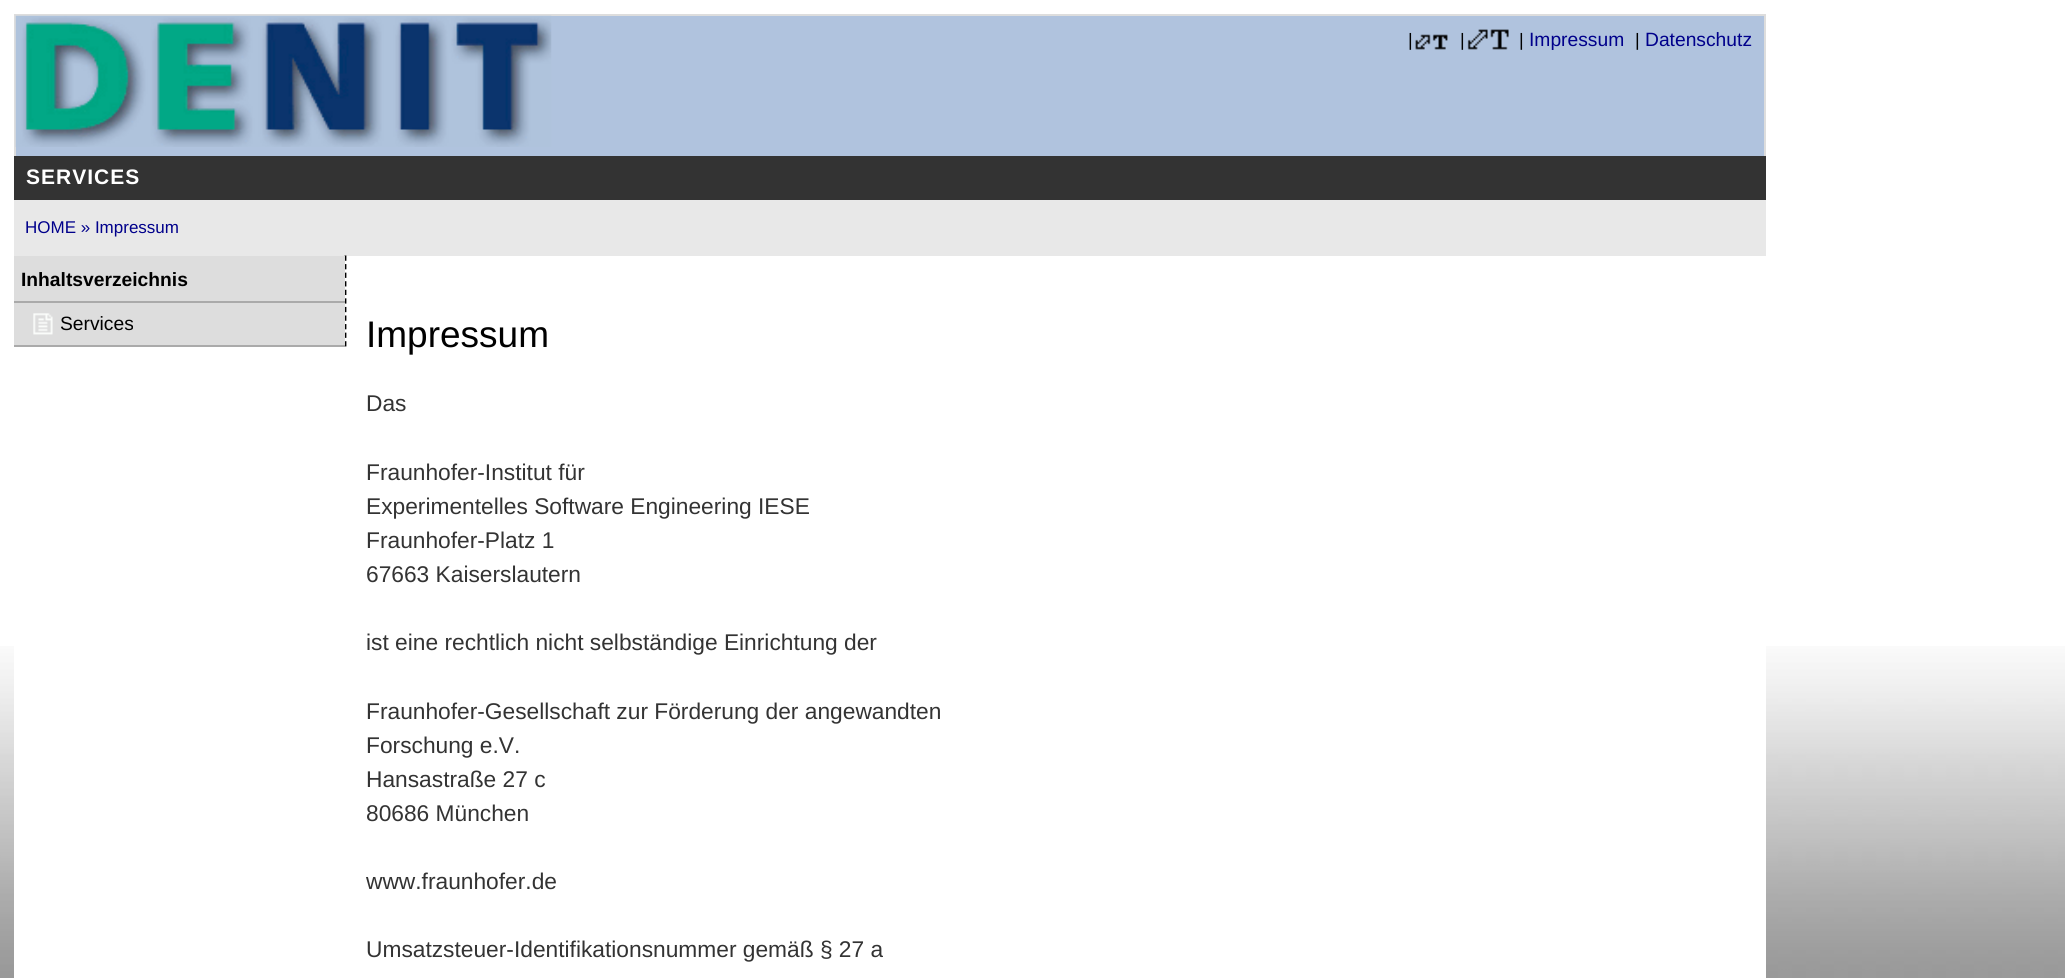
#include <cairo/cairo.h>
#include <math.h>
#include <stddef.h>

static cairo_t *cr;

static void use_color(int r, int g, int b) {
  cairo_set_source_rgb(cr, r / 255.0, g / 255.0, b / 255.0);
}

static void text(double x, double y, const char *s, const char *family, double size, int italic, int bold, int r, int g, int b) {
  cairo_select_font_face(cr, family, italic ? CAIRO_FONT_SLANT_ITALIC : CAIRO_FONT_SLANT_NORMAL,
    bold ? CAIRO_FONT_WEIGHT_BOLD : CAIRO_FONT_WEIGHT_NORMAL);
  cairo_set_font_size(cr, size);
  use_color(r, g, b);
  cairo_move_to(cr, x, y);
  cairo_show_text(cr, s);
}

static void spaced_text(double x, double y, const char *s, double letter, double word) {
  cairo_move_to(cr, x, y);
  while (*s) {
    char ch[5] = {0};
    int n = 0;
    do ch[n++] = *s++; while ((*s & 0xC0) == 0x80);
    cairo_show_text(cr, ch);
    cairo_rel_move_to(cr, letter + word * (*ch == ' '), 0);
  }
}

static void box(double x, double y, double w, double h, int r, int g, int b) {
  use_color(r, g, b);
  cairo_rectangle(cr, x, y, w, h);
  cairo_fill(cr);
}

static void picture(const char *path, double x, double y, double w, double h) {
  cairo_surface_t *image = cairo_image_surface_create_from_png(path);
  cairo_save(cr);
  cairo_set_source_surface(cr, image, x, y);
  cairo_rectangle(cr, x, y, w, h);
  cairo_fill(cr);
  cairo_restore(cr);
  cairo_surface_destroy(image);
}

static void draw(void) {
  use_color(255, 255, 255);
  cairo_paint(cr);
  picture("img_01.png", 0, 646, 2065, 332);
  box(14, 646, 1752, 332, 255, 255, 255);
  box(16, 16, 1748, 140, 176, 195, 222);
  box(14, 14, 1752, 2, 221, 221, 221);
  box(1764, 14, 2, 142, 221, 221, 221);
  box(14, 14, 2, 142, 221, 221, 221);
  picture("img_02.png", 15, 15, 537, 132);
  picture("img_03.png", 1415, 34, 33, 16);
  picture("img_04.png", 1467, 29, 42, 21);
  box(14, 156, 1752, 44, 51, 51, 51);
  box(14, 200, 1752, 56, 232, 232, 232);
  cairo_new_path(cr);
  cairo_move_to(cr, 345.5, 255.5);
  cairo_line_to(cr, 345.5, 346.5);
  use_color(0, 0, 0);
  cairo_set_line_width(cr, 1.8);
  cairo_set_dash(cr, (double[]){5.25, 3.32}, 2, 0);
  cairo_stroke(cr);
  box(14, 256, 331, 45, 221, 221, 221);
  box(14, 301, 331, 2, 170, 170, 170);
  box(14, 303, 331, 42, 221, 221, 221);
  box(14, 345, 331, 2, 170, 170, 170);
  picture("img_05.png", 33, 313, 20, 22);
  text(1408, 46, "|", "Liberation Sans", 18, 0, 0, 0, 0, 0);
  text(1460, 46, "|", "Liberation Sans", 18, 0, 0, 0, 0, 0);
  text(1519, 46, "|", "Liberation Sans", 18, 0, 0, 0, 0, 0);
  text(1529, 46, "Impressum", "Liberation Sans", 19.25, 0, 0, 0, 0, 139);
  text(1635, 46, "|", "Liberation Sans", 18, 0, 0, 0, 0, 0);
  text(1645, 46, "Datenschutz", "Liberation Sans", 19.25, 0, 0, 0, 0, 139);
  cairo_select_font_face(cr, "Liberation Sans", CAIRO_FONT_SLANT_NORMAL, CAIRO_FONT_WEIGHT_BOLD);
  cairo_set_font_size(cr, 21);
  use_color(255, 255, 255);
  spaced_text(26, 184, "SERVICES", 1, 0);
  text(25, 233, "HOME » Impressum", "Liberation Sans", 17, 0, 0, 0, 0, 139);
  text(21, 286, "Inhaltsverzeichnis", "Liberation Sans", 19.25, 0, 1, 0, 0, 0);
  text(60, 330, "Services", "Liberation Sans", 19.25, 0, 0, 0, 0, 0);
  text(366, 347, "Impressum", "Liberation Sans", 37, 0, 0, 0, 0, 0);
  text(366, 411, "Das", "Liberation Sans", 22.75, 0, 0, 51, 51, 51);
  text(366, 480, "Fraunhofer-Institut für", "Liberation Sans", 22.75, 0, 0, 51, 51, 51);
  text(366, 514, "Experimentelles Software Engineering IESE", "Liberation Sans", 22.75, 0, 0, 51, 51, 51);
  text(366, 548, "Fraunhofer-Platz 1", "Liberation Sans", 22.75, 0, 0, 51, 51, 51);
  text(366, 582, "67663 Kaiserslautern", "Liberation Sans", 22.75, 0, 0, 51, 51, 51);
  text(366, 650, "ist eine rechtlich nicht selbständige Einrichtung der", "Liberation Sans", 22.75, 0, 0, 51, 51, 51);
  text(366, 719, "Fraunhofer-Gesellschaft zur Förderung der angewandten", "Liberation Sans", 22.75, 0, 0, 51, 51, 51);
  text(366, 753, "Forschung e.V.", "Liberation Sans", 22.75, 0, 0, 51, 51, 51);
  text(366, 787, "Hansastraße 27 c", "Liberation Sans", 22.75, 0, 0, 51, 51, 51);
  text(366, 821, "80686 München", "Liberation Sans", 22.75, 0, 0, 51, 51, 51);
  text(366, 889, "www.fraunhofer.de", "Liberation Sans", 22.75, 0, 0, 51, 51, 51);
  text(366, 957, "Umsatzsteuer-Identifikationsnummer gemäß § 27 a", "Liberation Sans", 22.75, 0, 0, 51, 51, 51);
}

int main(void) {
  cairo_surface_t *surface = cairo_image_surface_create(CAIRO_FORMAT_RGB24, 2065, 978);
  cr = cairo_create(surface);
  cairo_font_options_t *options = cairo_font_options_create();
  cairo_font_options_set_hint_metrics(options, CAIRO_HINT_METRICS_OFF);
  cairo_font_options_set_hint_style(options, CAIRO_HINT_STYLE_NONE);
  cairo_set_font_options(cr, options);
  cairo_set_miter_limit(cr, 4);
  draw();
  cairo_surface_write_to_png(surface, "out.png");
  cairo_font_options_destroy(options);
  cairo_destroy(cr);
  cairo_surface_destroy(surface);
  return 0;
}
